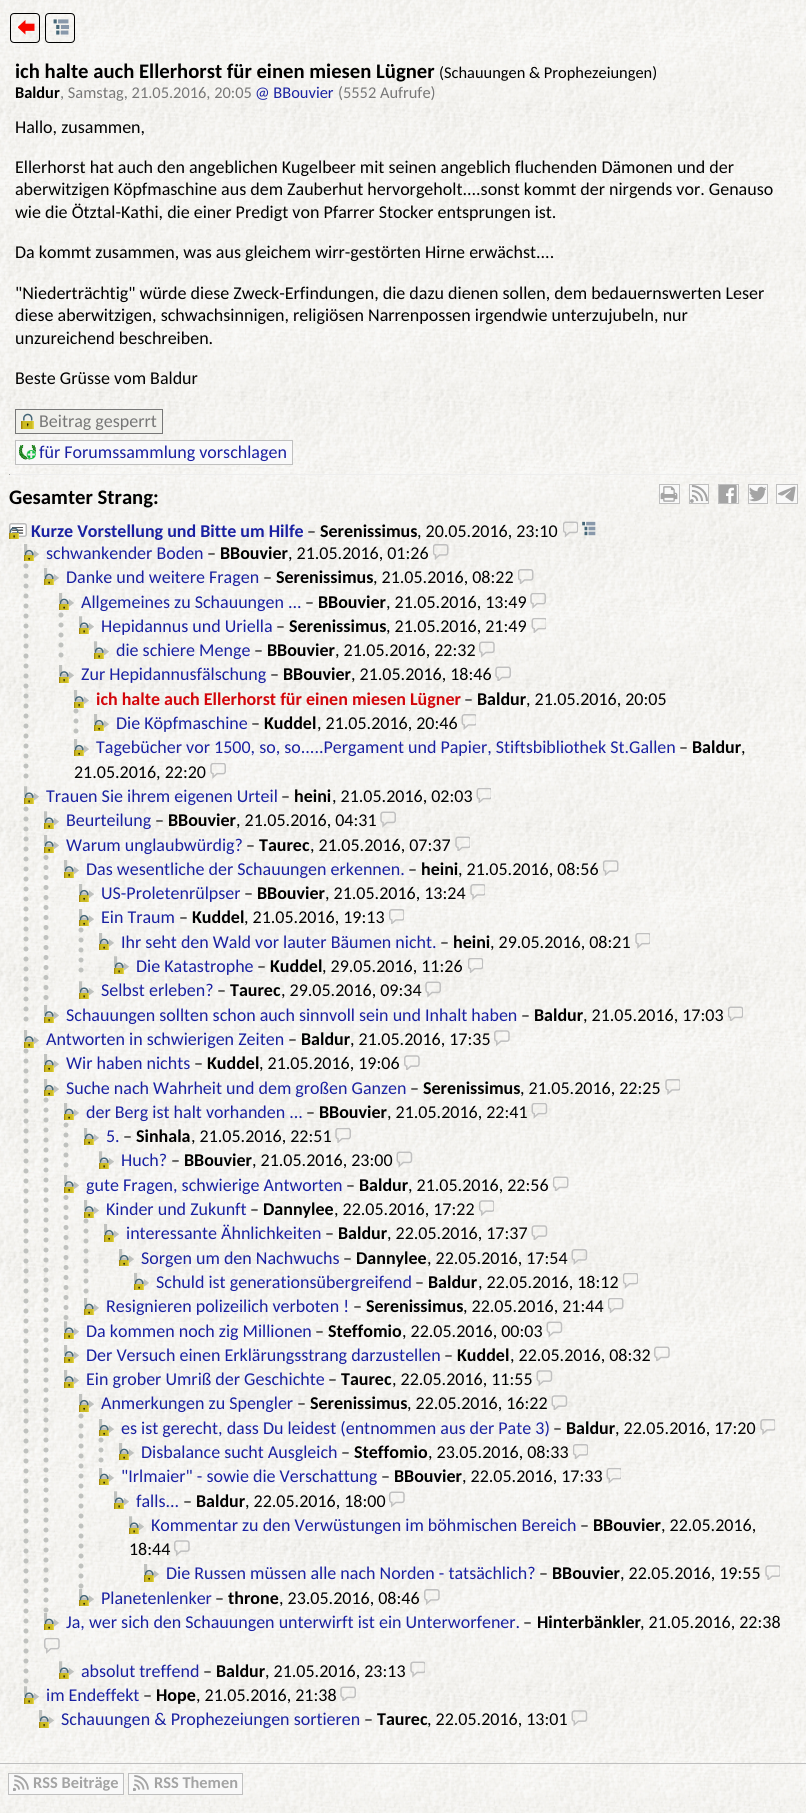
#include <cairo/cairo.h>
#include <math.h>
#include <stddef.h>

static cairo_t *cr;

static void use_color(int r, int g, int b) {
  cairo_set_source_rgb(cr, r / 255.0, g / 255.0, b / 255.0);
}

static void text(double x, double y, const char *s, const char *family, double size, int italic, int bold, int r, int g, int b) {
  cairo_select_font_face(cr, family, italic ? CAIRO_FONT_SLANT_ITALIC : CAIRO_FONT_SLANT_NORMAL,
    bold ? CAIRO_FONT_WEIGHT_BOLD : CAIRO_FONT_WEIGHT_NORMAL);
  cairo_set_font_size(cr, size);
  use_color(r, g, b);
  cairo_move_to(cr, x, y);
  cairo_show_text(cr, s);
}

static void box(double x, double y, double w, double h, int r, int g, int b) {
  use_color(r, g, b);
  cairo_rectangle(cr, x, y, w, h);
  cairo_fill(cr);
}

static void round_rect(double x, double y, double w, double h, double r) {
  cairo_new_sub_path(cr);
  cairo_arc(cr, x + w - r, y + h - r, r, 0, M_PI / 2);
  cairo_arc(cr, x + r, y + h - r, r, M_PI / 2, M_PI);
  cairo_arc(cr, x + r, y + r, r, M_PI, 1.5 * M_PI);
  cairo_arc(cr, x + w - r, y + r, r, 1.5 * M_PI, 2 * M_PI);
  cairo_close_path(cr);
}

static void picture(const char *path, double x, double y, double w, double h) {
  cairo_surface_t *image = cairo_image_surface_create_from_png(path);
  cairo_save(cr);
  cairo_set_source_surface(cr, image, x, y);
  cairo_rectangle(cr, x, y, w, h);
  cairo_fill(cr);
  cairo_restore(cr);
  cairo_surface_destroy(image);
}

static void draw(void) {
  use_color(255, 255, 255);
  cairo_paint(cr);
  picture("img_01.png", 0, 0, 806, 1813);
  round_rect(10.5, 13.5, 29, 29, 3.5);
  use_color(0, 0, 0);
  cairo_set_line_width(cr, 1);
  cairo_stroke(cr);
  picture("img_02.png", 18, 20, 17, 15);
  round_rect(45.5, 13.5, 29, 29, 3.5);
  cairo_stroke(cr);
  picture("img_03.png", 53, 19, 16, 16);
  use_color(240, 240, 235);
  cairo_rectangle(cr, 15.5, 409.5, 147, 24);
  cairo_fill_preserve(cr);
  use_color(119, 119, 119);
  cairo_stroke(cr);
  picture("img_04.png", 21, 413, 13, 16);
  use_color(249, 249, 249);
  cairo_rectangle(cr, 15.5, 440.5, 277, 24);
  cairo_fill_preserve(cr);
  use_color(192, 192, 192);
  cairo_stroke(cr);
  picture("img_05.png", 19, 445, 17, 15);
  box(9, 474, 789, 1, 238, 238, 238);
  box(9, 474, 1, 1, 159, 159, 159);
  use_color(249, 249, 249);
  cairo_rectangle(cr, 659.5, 484.5, 20, 19);
  cairo_fill_preserve(cr);
  use_color(192, 192, 192);
  cairo_stroke(cr);
  picture("img_06.png", 660, 486, 18, 16);
  use_color(249, 249, 249);
  cairo_rectangle(cr, 689.5, 484.5, 19, 19);
  cairo_fill_preserve(cr);
  use_color(192, 192, 192);
  cairo_stroke(cr);
  picture("img_07.png", 690, 485, 18, 18);
  use_color(249, 249, 249);
  cairo_rectangle(cr, 718.5, 484.5, 20, 19);
  cairo_fill_preserve(cr);
  use_color(192, 192, 192);
  cairo_stroke(cr);
  picture("img_08.png", 719, 485, 18, 18);
  use_color(249, 249, 249);
  cairo_rectangle(cr, 748.5, 484.5, 19, 19);
  cairo_fill_preserve(cr);
  use_color(192, 192, 192);
  cairo_stroke(cr);
  picture("img_09.png", 749, 486, 17, 16);
  use_color(249, 249, 249);
  cairo_rectangle(cr, 776.5, 484.5, 21, 19);
  cairo_fill_preserve(cr);
  use_color(192, 192, 192);
  cairo_stroke(cr);
  picture("img_10.png", 778, 486, 18, 16);
  picture("img_11.png", 9, 523, 18, 14);
  picture("img_12.png", 563, 521, 15, 17);
  picture("img_13.png", 582, 521, 14, 15);
  picture("img_14.png", 9, 527, 10, 12);
  picture("img_15.png", 24, 544, 15, 14);
  picture("img_16.png", 433, 544, 16, 16);
  picture("img_17.png", 24, 549, 10, 12);
  cairo_new_path(cr);
  cairo_move_to(cr, 26, 566);
  cairo_line_to(cr, 26, 785);
  use_color(191, 193, 190);
  cairo_set_line_width(cr, 5);
  cairo_set_line_cap(cr, CAIRO_LINE_CAP_ROUND);
  cairo_set_dash(cr, (double[]){0, 10}, 2, 0);
  cairo_stroke(cr);
  picture("img_18.png", 44, 568, 15, 14);
  picture("img_19.png", 518, 569, 16, 15);
  picture("img_20.png", 44, 573, 10, 12);
  picture("img_21.png", 59, 593, 15, 14);
  picture("img_22.png", 530, 593, 16, 16);
  picture("img_23.png", 59, 598, 10, 12);
  cairo_new_path(cr);
  cairo_move_to(cr, 61, 615);
  cairo_line_to(cr, 61, 662.5);
  cairo_stroke(cr);
  picture("img_24.png", 79, 616, 15, 15);
  picture("img_25.png", 531, 618, 15, 15);
  picture("img_26.png", 79, 622, 10, 12);
  picture("img_27.png", 94, 641, 15, 15);
  picture("img_28.png", 479, 641, 16, 17);
  picture("img_29.png", 94, 647, 10, 12);
  picture("img_30.png", 59, 665, 15, 14);
  picture("img_31.png", 495, 666, 16, 15);
  picture("img_32.png", 59, 671, 10, 12);
  picture("img_33.png", 74, 690, 15, 14);
  picture("img_34.png", 74, 696, 10, 12);
  cairo_new_path(cr);
  cairo_move_to(cr, 76, 711);
  cairo_line_to(cr, 76, 736);
  cairo_stroke(cr);
  picture("img_35.png", 94, 714, 15, 14);
  picture("img_36.png", 461, 714, 15, 16);
  picture("img_37.png", 94, 719, 10, 12);
  picture("img_38.png", 74, 739, 15, 14);
  picture("img_39.png", 74, 744, 10, 12);
  picture("img_40.png", 210, 763, 16, 16);
  picture("img_41.png", 24, 786, 15, 15);
  picture("img_42.png", 476, 788, 15, 15);
  picture("img_43.png", 24, 792, 10, 12);
  cairo_new_path(cr);
  cairo_move_to(cr, 26, 809);
  cairo_line_to(cr, 26, 1027.5);
  cairo_stroke(cr);
  picture("img_44.png", 44, 811, 15, 15);
  picture("img_45.png", 380, 811, 16, 17);
  picture("img_46.png", 44, 817, 10, 12);
  picture("img_47.png", 44, 835, 15, 14);
  picture("img_48.png", 455, 836, 15, 15);
  picture("img_49.png", 44, 841, 10, 12);
  cairo_new_path(cr);
  cairo_move_to(cr, 46, 857.5);
  cairo_line_to(cr, 46, 1004);
  cairo_stroke(cr);
  picture("img_50.png", 64, 860, 15, 14);
  picture("img_51.png", 603, 860, 16, 16);
  picture("img_52.png", 64, 866, 10, 12);
  picture("img_53.png", 79, 884, 15, 14);
  picture("img_54.png", 470, 884, 15, 16);
  picture("img_55.png", 79, 889, 10, 13);
  picture("img_56.png", 79, 909, 15, 14);
  picture("img_57.png", 389, 909, 15, 15);
  picture("img_58.png", 79, 914, 10, 12);
  cairo_new_path(cr);
  cairo_move_to(cr, 81, 930);
  cairo_line_to(cr, 81, 979);
  cairo_stroke(cr);
  picture("img_59.png", 99, 933, 15, 14);
  picture("img_60.png", 635, 933, 15, 16);
  picture("img_61.png", 99, 938, 10, 12);
  picture("img_62.png", 114, 956, 15, 15);
  picture("img_63.png", 468, 958, 15, 15);
  picture("img_64.png", 114, 962, 10, 12);
  picture("img_65.png", 79, 981, 15, 15);
  picture("img_66.png", 425, 981, 16, 17);
  picture("img_67.png", 79, 987, 10, 12);
  picture("img_68.png", 44, 1005, 15, 14);
  picture("img_69.png", 728, 1006, 15, 15);
  picture("img_70.png", 44, 1011, 10, 12);
  picture("img_71.png", 24, 1030, 15, 14);
  picture("img_72.png", 494, 1030, 16, 16);
  picture("img_73.png", 24, 1036, 10, 12);
  cairo_new_path(cr);
  cairo_move_to(cr, 26, 1051);
  cairo_line_to(cr, 26, 1684);
  cairo_stroke(cr);
  picture("img_74.png", 44, 1054, 15, 14);
  picture("img_75.png", 404, 1055, 16, 15);
  picture("img_76.png", 44, 1059, 10, 13);
  picture("img_77.png", 44, 1079, 15, 14);
  picture("img_78.png", 665, 1079, 15, 16);
  picture("img_79.png", 44, 1084, 10, 12);
  cairo_new_path(cr);
  cairo_move_to(cr, 46, 1100);
  cairo_line_to(cr, 46, 1610);
  cairo_stroke(cr);
  picture("img_80.png", 64, 1103, 15, 14);
  picture("img_81.png", 531, 1103, 17, 16);
  picture("img_82.png", 64, 1108, 10, 12);
  cairo_new_path(cr);
  cairo_move_to(cr, 66, 1125);
  cairo_line_to(cr, 66, 1174);
  cairo_stroke(cr);
  picture("img_83.png", 84, 1128, 15, 14);
  picture("img_84.png", 335, 1128, 16, 15);
  picture("img_85.png", 84, 1133, 10, 12);
  picture("img_86.png", 99, 1151, 15, 15);
  picture("img_87.png", 396, 1151, 17, 17);
  picture("img_88.png", 99, 1157, 10, 12);
  picture("img_89.png", 64, 1175, 15, 14);
  picture("img_90.png", 553, 1176, 16, 15);
  picture("img_91.png", 64, 1181, 10, 12);
  cairo_new_path(cr);
  cairo_move_to(cr, 66, 1197.5);
  cairo_line_to(cr, 66, 1319);
  cairo_stroke(cr);
  picture("img_92.png", 84, 1200, 15, 14);
  picture("img_93.png", 479, 1200, 15, 16);
  picture("img_94.png", 84, 1206, 10, 12);
  cairo_new_path(cr);
  cairo_move_to(cr, 86, 1221);
  cairo_line_to(cr, 86, 1295);
  cairo_stroke(cr);
  picture("img_95.png", 104, 1224, 15, 14);
  picture("img_96.png", 531, 1225, 17, 15);
  picture("img_97.png", 104, 1229, 10, 13);
  picture("img_98.png", 119, 1249, 15, 14);
  picture("img_99.png", 571, 1249, 17, 16);
  picture("img_100.png", 119, 1254, 10, 12);
  picture("img_101.png", 134, 1273, 15, 14);
  picture("img_102.png", 623, 1273, 15, 16);
  picture("img_103.png", 134, 1278, 10, 12);
  picture("img_104.png", 84, 1298, 15, 14);
  picture("img_105.png", 608, 1298, 16, 15);
  picture("img_106.png", 84, 1303, 10, 12);
  picture("img_107.png", 64, 1321, 15, 15);
  picture("img_108.png", 546, 1321, 17, 17);
  picture("img_109.png", 64, 1327, 10, 12);
  picture("img_110.png", 64, 1345, 15, 14);
  picture("img_111.png", 654, 1346, 16, 15);
  picture("img_112.png", 64, 1351, 10, 12);
  picture("img_113.png", 64, 1370, 15, 14);
  picture("img_114.png", 536, 1370, 17, 16);
  picture("img_115.png", 64, 1376, 10, 12);
  picture("img_116.png", 79, 1394, 15, 14);
  picture("img_117.png", 551, 1395, 17, 15);
  picture("img_118.png", 79, 1399, 10, 13);
  cairo_new_path(cr);
  cairo_move_to(cr, 81, 1416);
  cairo_line_to(cr, 81, 1586);
  cairo_stroke(cr);
  picture("img_119.png", 99, 1419, 15, 14);
  picture("img_120.png", 760, 1419, 15, 16);
  picture("img_121.png", 99, 1424, 10, 12);
  cairo_new_path(cr);
  cairo_move_to(cr, 101, 1440);
  cairo_line_to(cr, 101, 1465);
  cairo_stroke(cr);
  picture("img_122.png", 119, 1443, 15, 14);
  picture("img_123.png", 573, 1444, 15, 15);
  picture("img_124.png", 119, 1448, 10, 12);
  picture("img_125.png", 99, 1468, 15, 14);
  picture("img_126.png", 606, 1468, 15, 16);
  picture("img_127.png", 99, 1473, 10, 12);
  picture("img_128.png", 114, 1491, 15, 15);
  picture("img_129.png", 389, 1491, 16, 17);
  picture("img_130.png", 114, 1497, 10, 12);
  picture("img_131.png", 129, 1516, 15, 15);
  picture("img_132.png", 129, 1522, 10, 12);
  picture("img_133.png", 174, 1540, 16, 16);
  picture("img_134.png", 144, 1564, 15, 14);
  picture("img_135.png", 765, 1565, 15, 15);
  picture("img_136.png", 144, 1569, 10, 13);
  picture("img_137.png", 79, 1589, 15, 14);
  picture("img_138.png", 424, 1589, 16, 16);
  picture("img_139.png", 79, 1594, 10, 12);
  picture("img_140.png", 44, 1613, 15, 14);
  picture("img_141.png", 44, 1618, 10, 12);
  picture("img_142.png", 44, 1638, 16, 16);
  picture("img_143.png", 59, 1661, 15, 15);
  picture("img_144.png", 410, 1661, 15, 17);
  picture("img_145.png", 59, 1667, 10, 12);
  picture("img_146.png", 24, 1686, 15, 15);
  picture("img_147.png", 340, 1686, 16, 15);
  picture("img_148.png", 24, 1692, 10, 12);
  picture("img_149.png", 39, 1710, 15, 14);
  picture("img_150.png", 571, 1710, 17, 16);
  picture("img_151.png", 39, 1716, 10, 12);
  box(0, 1763, 806, 1, 192, 192, 192);
  box(9, 1774, 114, 20, 249, 249, 249);
  picture("img_152.png", 13, 1775, 16, 16);
  cairo_rectangle(cr, 8.5, 1773.5, 115, 21);
  use_color(192, 192, 192);
  cairo_set_line_width(cr, 1);
  cairo_set_line_cap(cr, CAIRO_LINE_CAP_BUTT);
  cairo_set_dash(cr, NULL, 0, 0);
  cairo_stroke(cr);
  box(129, 1774, 113, 20, 249, 249, 249);
  picture("img_152.png", 133, 1775, 16, 16);
  cairo_rectangle(cr, 128.5, 1773.5, 114, 21);
  use_color(192, 192, 192);
  cairo_stroke(cr);
  text(15, 78, "ich halte auch Ellerhorst für einen miesen Lügner", "Carlito", 20.7, 0, 1, 0, 0, 0);
  text(439, 78, "(Schauungen & Prophezeiungen)", "Carlito", 16.4, 0, 0, 0, 0, 0);
  text(15, 98, "Baldur", "Carlito", 16.4, 0, 1, 0, 0, 0);
  text(60, 98, ", Samstag, 21.05.2016, 20:05", "Carlito", 16.4, 0, 0, 119, 119, 119);
  text(255, 98, "@ BBouvier", "Carlito", 16.4, 0, 0, 26, 33, 162);
  text(338, 98, "(5552 Aufrufe)", "Carlito", 16.4, 0, 0, 119, 119, 119);
  text(15, 133, "Hallo, zusammen,", "Carlito", 18, 0, 0, 0, 0, 0);
  text(15, 173, "Ellerhorst hat auch den angeblichen Kugelbeer mit seinen angeblich fluchenden Dämonen und der", "Carlito", 18, 0, 0, 0, 0, 0);
  text(15, 195, "aberwitzigen Köpfmaschine aus dem Zauberhut hervorgeholt....sonst kommt der nirgends vor. Genauso", "Carlito", 18, 0, 0, 0, 0, 0);
  text(15, 218, "wie die Ötztal-Kathi, die einer Predigt von Pfarrer Stocker entsprungen ist.", "Carlito", 18, 0, 0, 0, 0, 0);
  text(15, 258, "Da kommt zusammen, was aus gleichem wirr-gestörten Hirne erwächst....", "Carlito", 18, 0, 0, 0, 0, 0);
  text(15, 299, "\"Niederträchtig\" würde diese Zweck-Erfindungen, die dazu dienen sollen, dem bedauernswerten Leser", "Carlito", 18, 0, 0, 0, 0, 0);
  text(15, 321, "diese aberwitzigen, schwachsinnigen, religiösen Narrenpossen irgendwie unterzujubeln, nur", "Carlito", 18, 0, 0, 0, 0, 0);
  text(15, 344, "unzureichend beschreiben.", "Carlito", 18, 0, 0, 0, 0, 0);
  text(15, 384, "Beste Grüsse vom Baldur", "Carlito", 18, 0, 0, 0, 0, 0);
  text(39, 427, "Beitrag gesperrt", "Carlito", 18, 0, 0, 119, 119, 119);
  text(39, 458, "für Forumssammlung vorschlagen", "Carlito", 18, 0, 0, 26, 33, 162);
  text(9, 504, "Gesamter Strang:", "Carlito", 20.7, 0, 1, 0, 0, 0);
  text(31, 537, "Kurze Vorstellung und Bitte um Hilfe", "Carlito", 18, 0, 1, 26, 33, 162);
  text(320, 537, "Serenissimus", "Carlito", 18, 0, 1, 0, 0, 0);
  text(417, 537, ", 20.05.2016, 23:10", "Carlito", 18, 0, 0, 0, 0, 0);
  text(307, 537, "–", "Carlito", 18, 0, 0, 0, 0, 0);
  text(46, 559, "schwankender Boden", "Carlito", 18, 0, 0, 26, 33, 162);
  text(220, 559, "BBouvier", "Carlito", 18, 0, 1, 0, 0, 0);
  text(288, 559, ", 21.05.2016, 01:26", "Carlito", 18, 0, 0, 0, 0, 0);
  text(207, 559, "–", "Carlito", 18, 0, 0, 0, 0, 0);
  text(66, 583, "Danke und weitere Fragen", "Carlito", 18, 0, 0, 26, 33, 162);
  text(276, 583, "Serenissimus", "Carlito", 18, 0, 1, 0, 0, 0);
  text(373, 583, ", 21.05.2016, 08:22", "Carlito", 18, 0, 0, 0, 0, 0);
  text(263, 583, "–", "Carlito", 18, 0, 0, 0, 0, 0);
  text(81, 608, "Allgemeines zu Schauungen ...", "Carlito", 18, 0, 0, 26, 33, 162);
  text(318, 608, "BBouvier", "Carlito", 18, 0, 1, 0, 0, 0);
  text(386, 608, ", 21.05.2016, 13:49", "Carlito", 18, 0, 0, 0, 0, 0);
  text(305, 608, "–", "Carlito", 18, 0, 0, 0, 0, 0);
  text(101, 632, "Hepidannus und Uriella", "Carlito", 18, 0, 0, 26, 33, 162);
  text(289, 632, "Serenissimus", "Carlito", 18, 0, 1, 0, 0, 0);
  text(386, 632, ", 21.05.2016, 21:49", "Carlito", 18, 0, 0, 0, 0, 0);
  text(276, 632, "–", "Carlito", 18, 0, 0, 0, 0, 0);
  text(116, 656, "die schiere Menge", "Carlito", 18, 0, 0, 26, 33, 162);
  text(267, 656, "BBouvier", "Carlito", 18, 0, 1, 0, 0, 0);
  text(335, 656, ", 21.05.2016, 22:32", "Carlito", 18, 0, 0, 0, 0, 0);
  text(254, 656, "–", "Carlito", 18, 0, 0, 0, 0, 0);
  text(81, 680, "Zur Hepidannusfälschung", "Carlito", 18, 0, 0, 26, 33, 162);
  text(283, 680, "BBouvier", "Carlito", 18, 0, 1, 0, 0, 0);
  text(351, 680, ", 21.05.2016, 18:46", "Carlito", 18, 0, 0, 0, 0, 0);
  text(270, 680, "–", "Carlito", 18, 0, 0, 0, 0, 0);
  text(96, 705, "ich halte auch Ellerhorst für einen miesen Lügner", "Carlito", 18, 0, 1, 211, 6, 10);
  text(477, 705, "Baldur", "Carlito", 18, 0, 1, 0, 0, 0);
  text(526, 705, ", 21.05.2016, 20:05", "Carlito", 18, 0, 0, 0, 0, 0);
  text(464, 705, "–", "Carlito", 18, 0, 0, 0, 0, 0);
  text(116, 729, "Die Köpfmaschine", "Carlito", 18, 0, 0, 26, 33, 162);
  text(264, 729, "Kuddel", "Carlito", 18, 0, 1, 0, 0, 0);
  text(317, 729, ", 21.05.2016, 20:46", "Carlito", 18, 0, 0, 0, 0, 0);
  text(251, 729, "–", "Carlito", 18, 0, 0, 0, 0, 0);
  text(96, 753, "Tagebücher vor 1500, so, so.....Pergament und Papier, Stiftsbibliothek St.Gallen", "Carlito", 18, 0, 0, 26, 33, 162);
  text(692, 753, "Baldur", "Carlito", 18, 0, 1, 0, 0, 0);
  text(679, 753, "–", "Carlito", 18, 0, 0, 0, 0, 0);
  text(741, 753, ",", "Carlito", 18, 0, 0, 0, 0, 0);
  text(74, 778, "21.05.2016, 22:20", "Carlito", 18, 0, 0, 0, 0, 0);
  text(46, 802, "Trauen Sie ihrem eigenen Urteil", "Carlito", 18, 0, 0, 26, 33, 162);
  text(294, 802, "heini", "Carlito", 18, 0, 1, 0, 0, 0);
  text(332, 802, ", 21.05.2016, 02:03", "Carlito", 18, 0, 0, 0, 0, 0);
  text(281, 802, "–", "Carlito", 18, 0, 0, 0, 0, 0);
  text(66, 826, "Beurteilung", "Carlito", 18, 0, 0, 26, 33, 162);
  text(168, 826, "BBouvier", "Carlito", 18, 0, 1, 0, 0, 0);
  text(236, 826, ", 21.05.2016, 04:31", "Carlito", 18, 0, 0, 0, 0, 0);
  text(155, 826, "–", "Carlito", 18, 0, 0, 0, 0, 0);
  text(66, 851, "Warum unglaubwürdig?", "Carlito", 18, 0, 0, 26, 33, 162);
  text(259, 851, "Taurec", "Carlito", 18, 0, 1, 0, 0, 0);
  text(310, 851, ", 21.05.2016, 07:37", "Carlito", 18, 0, 0, 0, 0, 0);
  text(246, 851, "–", "Carlito", 18, 0, 0, 0, 0, 0);
  text(86, 875, "Das wesentliche der Schauungen erkennen.", "Carlito", 18, 0, 0, 26, 33, 162);
  text(421, 875, "heini", "Carlito", 18, 0, 1, 0, 0, 0);
  text(458, 875, ", 21.05.2016, 08:56", "Carlito", 18, 0, 0, 0, 0, 0);
  text(408, 875, "–", "Carlito", 18, 0, 0, 0, 0, 0);
  text(101, 899, "US-Proletenrülpser", "Carlito", 18, 0, 0, 26, 33, 162);
  text(257, 899, "BBouvier", "Carlito", 18, 0, 1, 0, 0, 0);
  text(325, 899, ", 21.05.2016, 13:24", "Carlito", 18, 0, 0, 0, 0, 0);
  text(244, 899, "–", "Carlito", 18, 0, 0, 0, 0, 0);
  text(101, 923, "Ein Traum", "Carlito", 18, 0, 0, 26, 33, 162);
  text(192, 923, "Kuddel", "Carlito", 18, 0, 1, 0, 0, 0);
  text(244, 923, ", 21.05.2016, 19:13", "Carlito", 18, 0, 0, 0, 0, 0);
  text(179, 923, "–", "Carlito", 18, 0, 0, 0, 0, 0);
  text(121, 948, "Ihr seht den Wald vor lauter Bäumen nicht.", "Carlito", 18, 0, 0, 26, 33, 162);
  text(453, 948, "heini", "Carlito", 18, 0, 1, 0, 0, 0);
  text(490, 948, ", 29.05.2016, 08:21", "Carlito", 18, 0, 0, 0, 0, 0);
  text(440, 948, "–", "Carlito", 18, 0, 0, 0, 0, 0);
  text(136, 972, "Die Katastrophe", "Carlito", 18, 0, 0, 26, 33, 162);
  text(270, 972, "Kuddel", "Carlito", 18, 0, 1, 0, 0, 0);
  text(322, 972, ", 29.05.2016, 11:26", "Carlito", 18, 0, 0, 0, 0, 0);
  text(257, 972, "–", "Carlito", 18, 0, 0, 0, 0, 0);
  text(101, 996, "Selbst erleben?", "Carlito", 18, 0, 0, 26, 33, 162);
  text(230, 996, "Taurec", "Carlito", 18, 0, 1, 0, 0, 0);
  text(281, 996, ", 29.05.2016, 09:34", "Carlito", 18, 0, 0, 0, 0, 0);
  text(217, 996, "–", "Carlito", 18, 0, 0, 0, 0, 0);
  text(66, 1021, "Schauungen sollten schon auch sinnvoll sein und Inhalt haben", "Carlito", 18, 0, 0, 26, 33, 162);
  text(534, 1021, "Baldur", "Carlito", 18, 0, 1, 0, 0, 0);
  text(583, 1021, ", 21.05.2016, 17:03", "Carlito", 18, 0, 0, 0, 0, 0);
  text(521, 1021, "–", "Carlito", 18, 0, 0, 0, 0, 0);
  text(46, 1045, "Antworten in schwierigen Zeiten", "Carlito", 18, 0, 0, 26, 33, 162);
  text(301, 1045, "Baldur", "Carlito", 18, 0, 1, 0, 0, 0);
  text(350, 1045, ", 21.05.2016, 17:35", "Carlito", 18, 0, 0, 0, 0, 0);
  text(288, 1045, "–", "Carlito", 18, 0, 0, 0, 0, 0);
  text(66, 1069, "Wir haben nichts", "Carlito", 18, 0, 0, 26, 33, 162);
  text(207, 1069, "Kuddel", "Carlito", 18, 0, 1, 0, 0, 0);
  text(259, 1069, ", 21.05.2016, 19:06", "Carlito", 18, 0, 0, 0, 0, 0);
  text(194, 1069, "–", "Carlito", 18, 0, 0, 0, 0, 0);
  text(66, 1094, "Suche nach Wahrheit und dem großen Ganzen", "Carlito", 18, 0, 0, 26, 33, 162);
  text(423, 1094, "Serenissimus", "Carlito", 18, 0, 1, 0, 0, 0);
  text(520, 1094, ", 21.05.2016, 22:25", "Carlito", 18, 0, 0, 0, 0, 0);
  text(410, 1094, "–", "Carlito", 18, 0, 0, 0, 0, 0);
  text(86, 1118, "der Berg ist halt vorhanden ...", "Carlito", 18, 0, 0, 26, 33, 162);
  text(319, 1118, "BBouvier", "Carlito", 18, 0, 1, 0, 0, 0);
  text(387, 1118, ", 21.05.2016, 22:41", "Carlito", 18, 0, 0, 0, 0, 0);
  text(306, 1118, "–", "Carlito", 18, 0, 0, 0, 0, 0);
  text(106, 1142, "5.", "Carlito", 18, 0, 0, 26, 33, 162);
  text(136, 1142, "Sinhala", "Carlito", 18, 0, 1, 0, 0, 0);
  text(191, 1142, ", 21.05.2016, 22:51", "Carlito", 18, 0, 0, 0, 0, 0);
  text(123, 1142, "–", "Carlito", 18, 0, 0, 0, 0, 0);
  text(121, 1166, "Huch?", "Carlito", 18, 0, 0, 26, 33, 162);
  text(184, 1166, "BBouvier", "Carlito", 18, 0, 1, 0, 0, 0);
  text(252, 1166, ", 21.05.2016, 23:00", "Carlito", 18, 0, 0, 0, 0, 0);
  text(171, 1166, "–", "Carlito", 18, 0, 0, 0, 0, 0);
  text(86, 1191, "gute Fragen, schwierige Antworten", "Carlito", 18, 0, 0, 26, 33, 162);
  text(359, 1191, "Baldur", "Carlito", 18, 0, 1, 0, 0, 0);
  text(408, 1191, ", 21.05.2016, 22:56", "Carlito", 18, 0, 0, 0, 0, 0);
  text(346, 1191, "–", "Carlito", 18, 0, 0, 0, 0, 0);
  text(106, 1215, "Kinder und Zukunft", "Carlito", 18, 0, 0, 26, 33, 162);
  text(263, 1215, "Dannylee", "Carlito", 18, 0, 1, 0, 0, 0);
  text(334, 1215, ", 22.05.2016, 17:22", "Carlito", 18, 0, 0, 0, 0, 0);
  text(250, 1215, "–", "Carlito", 18, 0, 0, 0, 0, 0);
  text(126, 1239, "interessante Ähnlichkeiten", "Carlito", 18, 0, 0, 26, 33, 162);
  text(338, 1239, "Baldur", "Carlito", 18, 0, 1, 0, 0, 0);
  text(387, 1239, ", 22.05.2016, 17:37", "Carlito", 18, 0, 0, 0, 0, 0);
  text(325, 1239, "–", "Carlito", 18, 0, 0, 0, 0, 0);
  text(141, 1264, "Sorgen um den Nachwuchs", "Carlito", 18, 0, 0, 26, 33, 162);
  text(356, 1264, "Dannylee", "Carlito", 18, 0, 1, 0, 0, 0);
  text(427, 1264, ", 22.05.2016, 17:54", "Carlito", 18, 0, 0, 0, 0, 0);
  text(343, 1264, "–", "Carlito", 18, 0, 0, 0, 0, 0);
  text(156, 1288, "Schuld ist generationsübergreifend", "Carlito", 18, 0, 0, 26, 33, 162);
  text(428, 1288, "Baldur", "Carlito", 18, 0, 1, 0, 0, 0);
  text(478, 1288, ", 22.05.2016, 18:12", "Carlito", 18, 0, 0, 0, 0, 0);
  text(415, 1288, "–", "Carlito", 18, 0, 0, 0, 0, 0);
  text(106, 1312, "Resignieren polizeilich verboten !", "Carlito", 18, 0, 0, 26, 33, 162);
  text(366, 1312, "Serenissimus", "Carlito", 18, 0, 1, 0, 0, 0);
  text(463, 1312, ", 22.05.2016, 21:44", "Carlito", 18, 0, 0, 0, 0, 0);
  text(353, 1312, "–", "Carlito", 18, 0, 0, 0, 0, 0);
  text(86, 1337, "Da kommen noch zig Millionen", "Carlito", 18, 0, 0, 26, 33, 162);
  text(328, 1337, "Steffomio", "Carlito", 18, 0, 1, 0, 0, 0);
  text(402, 1337, ", 22.05.2016, 00:03", "Carlito", 18, 0, 0, 0, 0, 0);
  text(315, 1337, "–", "Carlito", 18, 0, 0, 0, 0, 0);
  text(86, 1361, "Der Versuch einen Erklärungsstrang darzustellen", "Carlito", 18, 0, 0, 26, 33, 162);
  text(457, 1361, "Kuddel", "Carlito", 18, 0, 1, 0, 0, 0);
  text(510, 1361, ", 22.05.2016, 08:32", "Carlito", 18, 0, 0, 0, 0, 0);
  text(444, 1361, "–", "Carlito", 18, 0, 0, 0, 0, 0);
  text(86, 1385, "Ein grober Umriß der Geschichte", "Carlito", 18, 0, 0, 26, 33, 162);
  text(341, 1385, "Taurec", "Carlito", 18, 0, 1, 0, 0, 0);
  text(392, 1385, ", 22.05.2016, 11:55", "Carlito", 18, 0, 0, 0, 0, 0);
  text(328, 1385, "–", "Carlito", 18, 0, 0, 0, 0, 0);
  text(101, 1409, "Anmerkungen zu Spengler", "Carlito", 18, 0, 0, 26, 33, 162);
  text(310, 1409, "Serenissimus", "Carlito", 18, 0, 1, 0, 0, 0);
  text(407, 1409, ", 22.05.2016, 16:22", "Carlito", 18, 0, 0, 0, 0, 0);
  text(297, 1409, "–", "Carlito", 18, 0, 0, 0, 0, 0);
  text(121, 1434, "es ist gerecht, dass Du leidest (entnommen aus der Pate 3)", "Carlito", 18, 0, 0, 26, 33, 162);
  text(566, 1434, "Baldur", "Carlito", 18, 0, 1, 0, 0, 0);
  text(615, 1434, ", 22.05.2016, 17:20", "Carlito", 18, 0, 0, 0, 0, 0);
  text(553, 1434, "–", "Carlito", 18, 0, 0, 0, 0, 0);
  text(141, 1458, "Disbalance sucht Ausgleich", "Carlito", 18, 0, 0, 26, 33, 162);
  text(354, 1458, "Steffomio", "Carlito", 18, 0, 1, 0, 0, 0);
  text(428, 1458, ", 23.05.2016, 08:33", "Carlito", 18, 0, 0, 0, 0, 0);
  text(341, 1458, "–", "Carlito", 18, 0, 0, 0, 0, 0);
  text(121, 1482, "\"Irlmaier\" - sowie die Verschattung", "Carlito", 18, 0, 0, 26, 33, 162);
  text(394, 1482, "BBouvier", "Carlito", 18, 0, 1, 0, 0, 0);
  text(462, 1482, ", 22.05.2016, 17:33", "Carlito", 18, 0, 0, 0, 0, 0);
  text(381, 1482, "–", "Carlito", 18, 0, 0, 0, 0, 0);
  text(136, 1507, "falls...", "Carlito", 18, 0, 0, 26, 33, 162);
  text(196, 1507, "Baldur", "Carlito", 18, 0, 1, 0, 0, 0);
  text(245, 1507, ", 22.05.2016, 18:00", "Carlito", 18, 0, 0, 0, 0, 0);
  text(183, 1507, "–", "Carlito", 18, 0, 0, 0, 0, 0);
  text(151, 1531, "Kommentar zu den Verwüstungen im böhmischen Bereich", "Carlito", 18, 0, 0, 26, 33, 162);
  text(593, 1531, "BBouvier", "Carlito", 18, 0, 1, 0, 0, 0);
  text(661, 1531, ", 22.05.2016,", "Carlito", 18, 0, 0, 0, 0, 0);
  text(580, 1531, "–", "Carlito", 18, 0, 0, 0, 0, 0);
  text(129, 1555, "18:44", "Carlito", 18, 0, 0, 0, 0, 0);
  text(166, 1579, "Die Russen müssen alle nach Norden - tatsächlich?", "Carlito", 18, 0, 0, 26, 33, 162);
  text(552, 1579, "BBouvier", "Carlito", 18, 0, 1, 0, 0, 0);
  text(620, 1579, ", 22.05.2016, 19:55", "Carlito", 18, 0, 0, 0, 0, 0);
  text(539, 1579, "–", "Carlito", 18, 0, 0, 0, 0, 0);
  text(101, 1604, "Planetenlenker", "Carlito", 18, 0, 0, 26, 33, 162);
  text(228, 1604, "throne", "Carlito", 18, 0, 1, 0, 0, 0);
  text(279, 1604, ", 23.05.2016, 08:46", "Carlito", 18, 0, 0, 0, 0, 0);
  text(215, 1604, "–", "Carlito", 18, 0, 0, 0, 0, 0);
  text(66, 1628, "Ja, wer sich den Schauungen unterwirft ist ein Unterworfener.", "Carlito", 18, 0, 0, 26, 33, 162);
  text(537, 1628, "Hinterbänkler", "Carlito", 18, 0, 1, 0, 0, 0);
  text(640, 1628, ", 21.05.2016, 22:38", "Carlito", 18, 0, 0, 0, 0, 0);
  text(523, 1628, "–", "Carlito", 18, 0, 0, 0, 0, 0);
  text(81, 1677, "absolut treffend", "Carlito", 18, 0, 0, 26, 33, 162);
  text(216, 1677, "Baldur", "Carlito", 18, 0, 1, 0, 0, 0);
  text(265, 1677, ", 21.05.2016, 23:13", "Carlito", 18, 0, 0, 0, 0, 0);
  text(203, 1677, "–", "Carlito", 18, 0, 0, 0, 0, 0);
  text(46, 1701, "im Endeffekt", "Carlito", 18, 0, 0, 26, 33, 162);
  text(156, 1701, "Hope", "Carlito", 18, 0, 1, 0, 0, 0);
  text(196, 1701, ", 21.05.2016, 21:38", "Carlito", 18, 0, 0, 0, 0, 0);
  text(143, 1701, "–", "Carlito", 18, 0, 0, 0, 0, 0);
  text(61, 1725, "Schauungen & Prophezeiungen sortieren", "Carlito", 18, 0, 0, 26, 33, 162);
  text(377, 1725, "Taurec", "Carlito", 18, 0, 1, 0, 0, 0);
  text(427, 1725, ", 22.05.2016, 13:01", "Carlito", 18, 0, 0, 0, 0, 0);
  text(364, 1725, "–", "Carlito", 18, 0, 0, 0, 0, 0);
  text(33, 1788, "RSS Beiträge", "Carlito", 16.4, 0, 1, 164, 164, 164);
  text(154, 1788, "RSS Themen", "Carlito", 16.4, 0, 1, 164, 164, 164);
}

int main(void) {
  cairo_surface_t *surface = cairo_image_surface_create(CAIRO_FORMAT_RGB24, 806, 1813);
  cr = cairo_create(surface);
  cairo_font_options_t *options = cairo_font_options_create();
  cairo_font_options_set_hint_metrics(options, CAIRO_HINT_METRICS_OFF);
  cairo_font_options_set_hint_style(options, CAIRO_HINT_STYLE_NONE);
  cairo_set_font_options(cr, options);
  cairo_set_miter_limit(cr, 4);
  draw();
  cairo_surface_write_to_png(surface, "out.png");
  cairo_font_options_destroy(options);
  cairo_destroy(cr);
  cairo_surface_destroy(surface);
  return 0;
}
